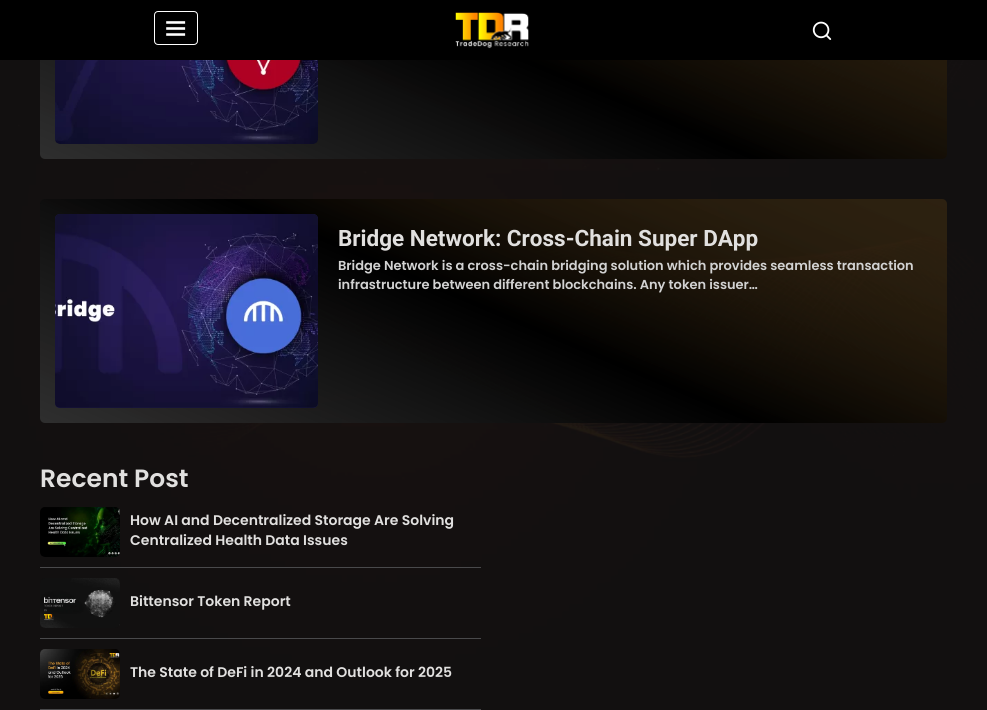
#include <cairo/cairo.h>
#include <math.h>
#include <stddef.h>

static cairo_t *cr;

static void use_color(int r, int g, int b) {
  cairo_set_source_rgb(cr, r / 255.0, g / 255.0, b / 255.0);
}

static void text(double x, double y, const char *s, const char *family, double size, int italic, int bold, int r, int g, int b) {
  cairo_select_font_face(cr, family, italic ? CAIRO_FONT_SLANT_ITALIC : CAIRO_FONT_SLANT_NORMAL,
    bold ? CAIRO_FONT_WEIGHT_BOLD : CAIRO_FONT_WEIGHT_NORMAL);
  cairo_set_font_size(cr, size);
  use_color(r, g, b);
  cairo_move_to(cr, x, y);
  cairo_show_text(cr, s);
}

static void box(double x, double y, double w, double h, int r, int g, int b) {
  use_color(r, g, b);
  cairo_rectangle(cr, x, y, w, h);
  cairo_fill(cr);
}

static void round_rect(double x, double y, double w, double h, double r) {
  cairo_new_sub_path(cr);
  cairo_arc(cr, x + w - r, y + h - r, r, 0, M_PI / 2);
  cairo_arc(cr, x + r, y + h - r, r, M_PI / 2, M_PI);
  cairo_arc(cr, x + r, y + r, r, M_PI, 1.5 * M_PI);
  cairo_arc(cr, x + w - r, y + r, r, 1.5 * M_PI, 2 * M_PI);
  cairo_close_path(cr);
}

static void picture(const char *path, double x, double y, double w, double h) {
  cairo_surface_t *image = cairo_image_surface_create_from_png(path);
  cairo_save(cr);
  cairo_set_source_surface(cr, image, x, y);
  cairo_rectangle(cr, x, y, w, h);
  cairo_fill(cr);
  cairo_restore(cr);
  cairo_surface_destroy(image);
}

static void draw(void) {
  cairo_pattern_t *gradient;
  use_color(18, 16, 16);
  cairo_paint(cr);
  picture("img_01.png", 0, 60, 987, 600);
  gradient = cairo_pattern_create_linear(603, -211, 384, 305);
  cairo_pattern_add_color_stop_rgba(gradient, 0, 0.302, 0.212, 0.071, 0.45);
  cairo_pattern_add_color_stop_rgba(gradient, 0.5, 0, 0, 0, 1);
  cairo_pattern_add_color_stop_rgba(gradient, 1, 0.196, 0.196, 0.196, 0.89);
  cairo_set_source(cr, gradient);
  cairo_pattern_destroy(gradient);
  round_rect(40, -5, 907, 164, 5);
  cairo_fill(cr);
  box(0, 0, 987, 60, 0, 0, 0);
  round_rect(154.5, 11.5, 43, 33, 3.5);
  use_color(255, 255, 255);
  cairo_set_line_width(cr, 1);
  cairo_stroke(cr);
  picture("img_02.png", 166, 21, 20, 15);
  picture("img_03.png", 455, 12, 74, 37);
  picture("img_04.png", 812, 21, 20, 19);
  picture("img_05.png", 55, 60, 263, 84);
  gradient = cairo_pattern_create_linear(603, 53, 384, 569);
  cairo_pattern_add_color_stop_rgba(gradient, 0, 0.302, 0.212, 0.071, 0.45);
  cairo_pattern_add_color_stop_rgba(gradient, 0.5, 0, 0, 0, 1);
  cairo_pattern_add_color_stop_rgba(gradient, 1, 0.196, 0.196, 0.196, 0.89);
  cairo_set_source(cr, gradient);
  cairo_pattern_destroy(gradient);
  round_rect(40, 199, 907, 224, 5);
  cairo_fill(cr);
  use_color(32, 29, 74);
  round_rect(55, 214, 263, 194, 5);
  cairo_fill(cr);
  picture("img_06.png", 55, 214, 263, 194);
  picture("img_07.png", 40, 507, 80, 50);
  box(40, 567, 441, 1, 73, 73, 75);
  picture("img_08.png", 40, 578, 80, 50);
  box(40, 638, 441, 1, 73, 73, 75);
  picture("img_09.png", 40, 649, 80, 50);
  box(40, 709, 441, 1, 73, 73, 75);
  text(338, 246, "Bridge Network: Cross-Chain Super DApp", "Roboto", 22.5, 0, 1, 225, 224, 223);
  text(338, 270, "Bridge Network is a cross-chain bridging solution which provides seamless transaction", "Poppins SemiBold", 13, 0, 0, 210, 210, 210);
  text(338, 289, "infrastructure between different blockchains. Any token issuer…", "Poppins SemiBold", 13, 0, 0, 210, 210, 210);
  text(40, 487, "Recent Post", "Poppins SemiBold", 25, 0, 0, 225, 224, 223);
  text(130, 525, "How AI and Decentralized Storage Are Solving", "Poppins SemiBold", 14, 0, 0, 225, 224, 223);
  text(130, 545, "Centralized Health Data Issues", "Poppins SemiBold", 14, 0, 0, 225, 224, 223);
  text(130, 606, "Bittensor Token Report", "Poppins SemiBold", 14, 0, 0, 225, 224, 223);
  text(130, 677, "The State of DeFi in 2024 and Outlook for 2025", "Poppins SemiBold", 14, 0, 0, 225, 224, 223);
}

int main(void) {
  cairo_surface_t *surface = cairo_image_surface_create(CAIRO_FORMAT_RGB24, 987, 710);
  cr = cairo_create(surface);
  cairo_font_options_t *options = cairo_font_options_create();
  cairo_font_options_set_hint_metrics(options, CAIRO_HINT_METRICS_OFF);
  cairo_font_options_set_hint_style(options, CAIRO_HINT_STYLE_NONE);
  cairo_set_font_options(cr, options);
  cairo_set_miter_limit(cr, 4);
  draw();
  cairo_surface_write_to_png(surface, "out.png");
  cairo_font_options_destroy(options);
  cairo_destroy(cr);
  cairo_surface_destroy(surface);
  return 0;
}
